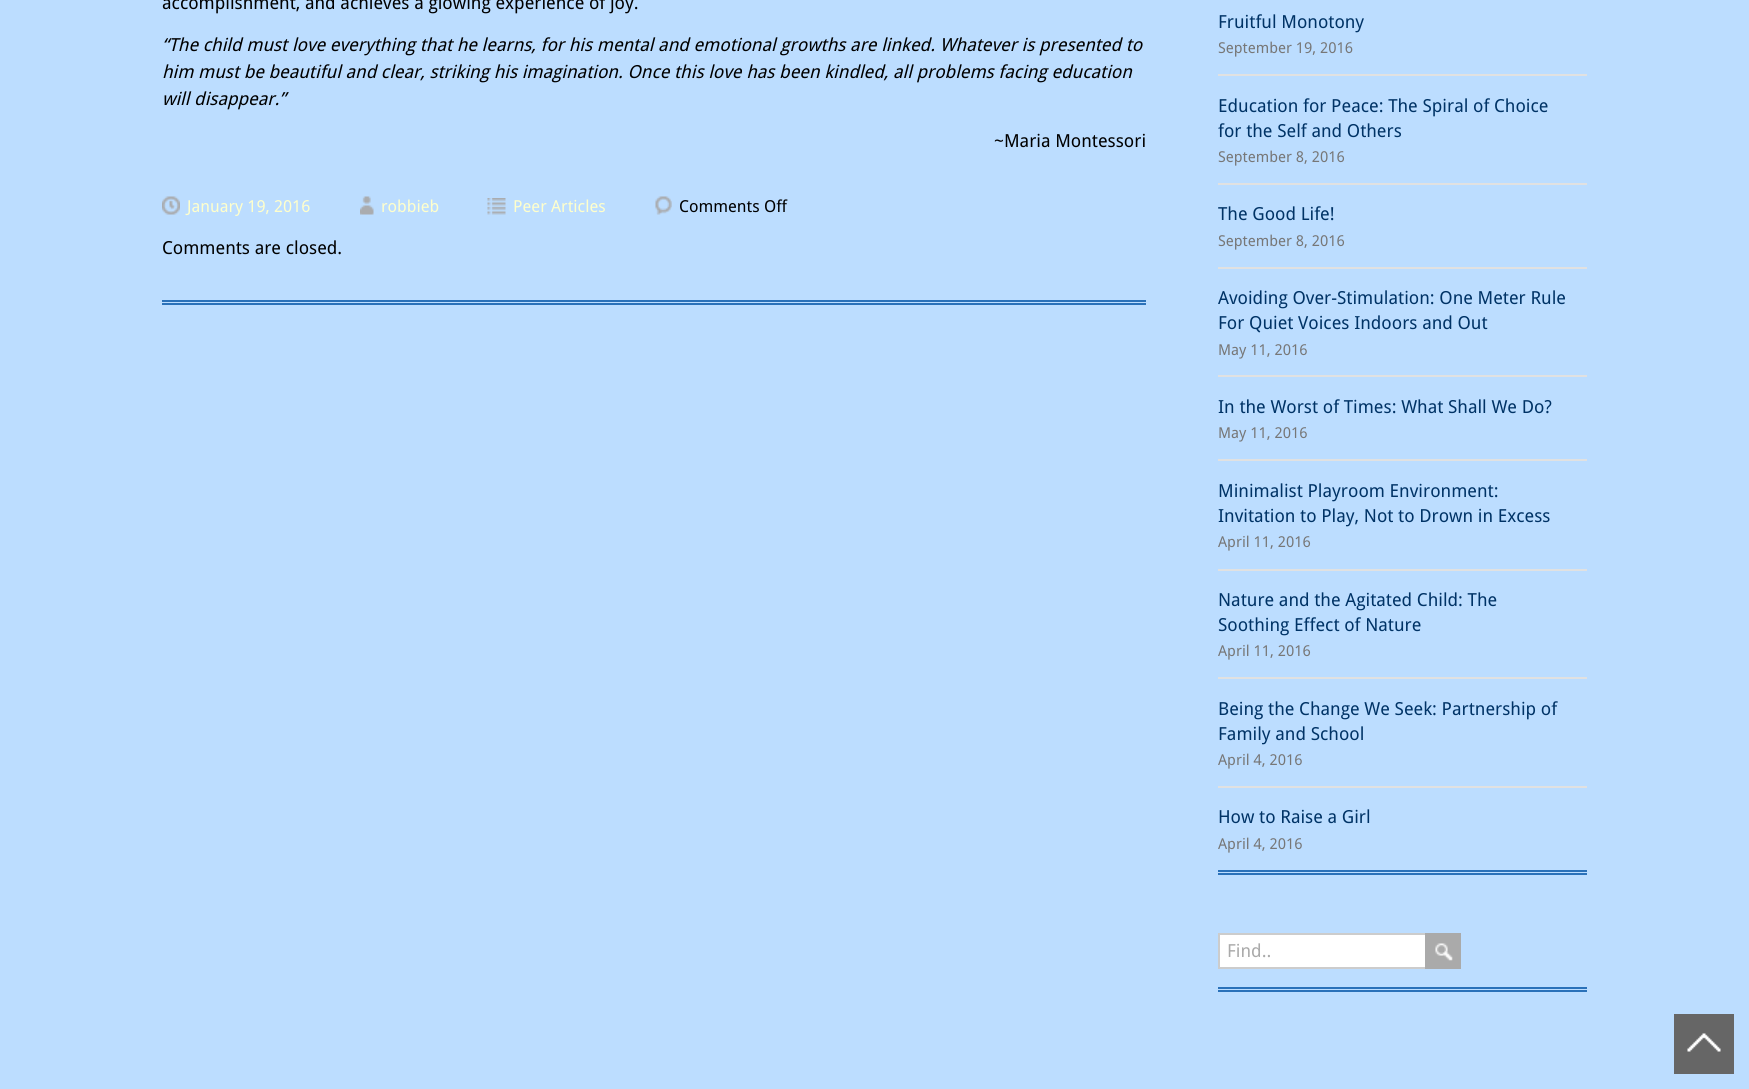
#include <cairo/cairo.h>
#include <math.h>
#include <stddef.h>

static cairo_t *cr;

static void use_color(int r, int g, int b) {
  cairo_set_source_rgb(cr, r / 255.0, g / 255.0, b / 255.0);
}

static void text(double x, double y, const char *s, const char *family, double size, int italic, int bold, int r, int g, int b) {
  cairo_select_font_face(cr, family, italic ? CAIRO_FONT_SLANT_ITALIC : CAIRO_FONT_SLANT_NORMAL,
    bold ? CAIRO_FONT_WEIGHT_BOLD : CAIRO_FONT_WEIGHT_NORMAL);
  cairo_set_font_size(cr, size);
  use_color(r, g, b);
  cairo_move_to(cr, x, y);
  cairo_show_text(cr, s);
}

static void box(double x, double y, double w, double h, int r, int g, int b) {
  use_color(r, g, b);
  cairo_rectangle(cr, x, y, w, h);
  cairo_fill(cr);
}

static void picture(const char *path, double x, double y, double w, double h) {
  cairo_surface_t *image = cairo_image_surface_create_from_png(path);
  cairo_save(cr);
  cairo_set_source_surface(cr, image, x, y);
  cairo_rectangle(cr, x, y, w, h);
  cairo_fill(cr);
  cairo_restore(cr);
  cairo_surface_destroy(image);
}

static void draw(void) {
  use_color(188, 221, 255);
  cairo_paint(cr);
  box(162, 300, 984, 2, 42, 113, 185);
  box(162, 303, 984, 2, 42, 113, 185);
  picture("img_01.png", 162, 196, 18, 19);
  picture("img_02.png", 360, 196, 14, 19);
  picture("img_03.png", 487, 198, 19, 17);
  picture("img_04.png", 655, 196, 17, 19);
  box(1218, 870, 369, 2, 42, 113, 185);
  box(1218, 873, 369, 2, 42, 113, 185);
  box(1218, 74, 369, 2, 225, 225, 225);
  box(1218, 183, 369, 2, 225, 225, 225);
  box(1218, 267, 369, 2, 225, 225, 225);
  box(1218, 375, 369, 2, 225, 225, 225);
  box(1218, 459, 369, 2, 225, 225, 225);
  box(1218, 569, 369, 2, 225, 225, 225);
  box(1218, 677, 369, 2, 225, 225, 225);
  box(1218, 786, 369, 2, 225, 225, 225);
  box(1218, 987, 369, 2, 42, 113, 185);
  box(1218, 990, 369, 2, 42, 113, 185);
  box(1220, 935, 205, 32, 255, 255, 255);
  cairo_rectangle(cr, 1219, 934, 211, 34);
  use_color(204, 204, 204);
  cairo_stroke(cr);
  box(1425, 933, 36, 36, 170, 170, 170);
  picture("img_05.png", 1435, 943, 18, 18);
  picture("img_06.png", 1674, 1014, 60, 60);
  text(162, 9, "accomplishment, and achieves a glowing experience of joy.", "Droid Sans", 18, 0, 0, 0, 0, 0);
  text(162, 51, "“The child must love everything that he learns, for his mental and emotional growths are linked. Whatever is presented to", "Droid Sans", 18, 1, 0, 0, 0, 0);
  text(162, 78, "him must be beautiful and clear, striking his imagination. Once this love has been kindled, all problems facing education", "Droid Sans", 18, 1, 0, 0, 0, 0);
  text(162, 105, "will disappear.”", "Droid Sans", 18, 1, 0, 0, 0, 0);
  text(994, 147, "~Maria Montessori", "Droid Sans", 18, 0, 0, 0, 0, 0);
  text(187, 212, "January 19, 2016", "Droid Sans", 16.5, 0, 0, 255, 255, 204);
  text(381, 212, "robbieb", "Droid Sans", 16.5, 0, 0, 255, 255, 204);
  text(513, 212, "Peer Articles", "Droid Sans", 16.5, 0, 0, 255, 255, 204);
  text(679, 212, "Comments Off", "Droid Sans", 16.5, 0, 0, 0, 0, 0);
  text(162, 254, "Comments are closed.", "Droid Sans", 18, 0, 0, 0, 0, 0);
  text(1218, 28, "Fruitful Monotony", "Droid Sans", 18, 0, 0, 0, 51, 102);
  text(1218, 53, "September 19, 2016", "Droid Sans", 15, 0, 0, 119, 119, 119);
  text(1218, 112, "Education for Peace: The Spiral of Choice", "Droid Sans", 18, 0, 0, 0, 51, 102);
  text(1218, 137, "for the Self and Others", "Droid Sans", 18, 0, 0, 0, 51, 102);
  text(1218, 162, "September 8, 2016", "Droid Sans", 15, 0, 0, 119, 119, 119);
  text(1218, 220, "The Good Life!", "Droid Sans", 18, 0, 0, 0, 51, 102);
  text(1218, 246, "September 8, 2016", "Droid Sans", 15, 0, 0, 119, 119, 119);
  text(1218, 304, "Avoiding Over-Stimulation: One Meter Rule", "Droid Sans", 18, 0, 0, 0, 51, 102);
  text(1218, 329, "For Quiet Voices Indoors and Out", "Droid Sans", 18, 0, 0, 0, 51, 102);
  text(1218, 355, "May 11, 2016", "Droid Sans", 15, 0, 0, 119, 119, 119);
  text(1218, 413, "In the Worst of Times: What Shall We Do?", "Droid Sans", 18, 0, 0, 0, 51, 102);
  text(1218, 438, "May 11, 2016", "Droid Sans", 15, 0, 0, 119, 119, 119);
  text(1218, 497, "Minimalist Playroom Environment:", "Droid Sans", 18, 0, 0, 0, 51, 102);
  text(1218, 522, "Invitation to Play, Not to Drown in Excess", "Droid Sans", 18, 0, 0, 0, 51, 102);
  text(1218, 547, "April 11, 2016", "Droid Sans", 15, 0, 0, 119, 119, 119);
  text(1218, 606, "Nature and the Agitated Child: The", "Droid Sans", 18, 0, 0, 0, 51, 102);
  text(1218, 631, "Soothing Effect of Nature", "Droid Sans", 18, 0, 0, 0, 51, 102);
  text(1218, 656, "April 11, 2016", "Droid Sans", 15, 0, 0, 119, 119, 119);
  text(1218, 715, "Being the Change We Seek: Partnership of", "Droid Sans", 18, 0, 0, 0, 51, 102);
  text(1218, 740, "Family and School", "Droid Sans", 18, 0, 0, 0, 51, 102);
  text(1218, 765, "April 4, 2016", "Droid Sans", 15, 0, 0, 119, 119, 119);
  text(1218, 823, "How to Raise a Girl", "Droid Sans", 18, 0, 0, 0, 51, 102);
  text(1218, 849, "April 4, 2016", "Droid Sans", 15, 0, 0, 119, 119, 119);
  text(1227, 957, "Find..", "Droid Sans", 18, 0, 0, 170, 170, 170);
}

int main(void) {
  cairo_surface_t *surface = cairo_image_surface_create(CAIRO_FORMAT_RGB24, 1749, 1089);
  cr = cairo_create(surface);
  cairo_font_options_t *options = cairo_font_options_create();
  cairo_font_options_set_hint_metrics(options, CAIRO_HINT_METRICS_OFF);
  cairo_font_options_set_hint_style(options, CAIRO_HINT_STYLE_NONE);
  cairo_set_font_options(cr, options);
  cairo_set_miter_limit(cr, 4);
  draw();
  cairo_surface_write_to_png(surface, "out.png");
  cairo_font_options_destroy(options);
  cairo_destroy(cr);
  cairo_surface_destroy(surface);
  return 0;
}
